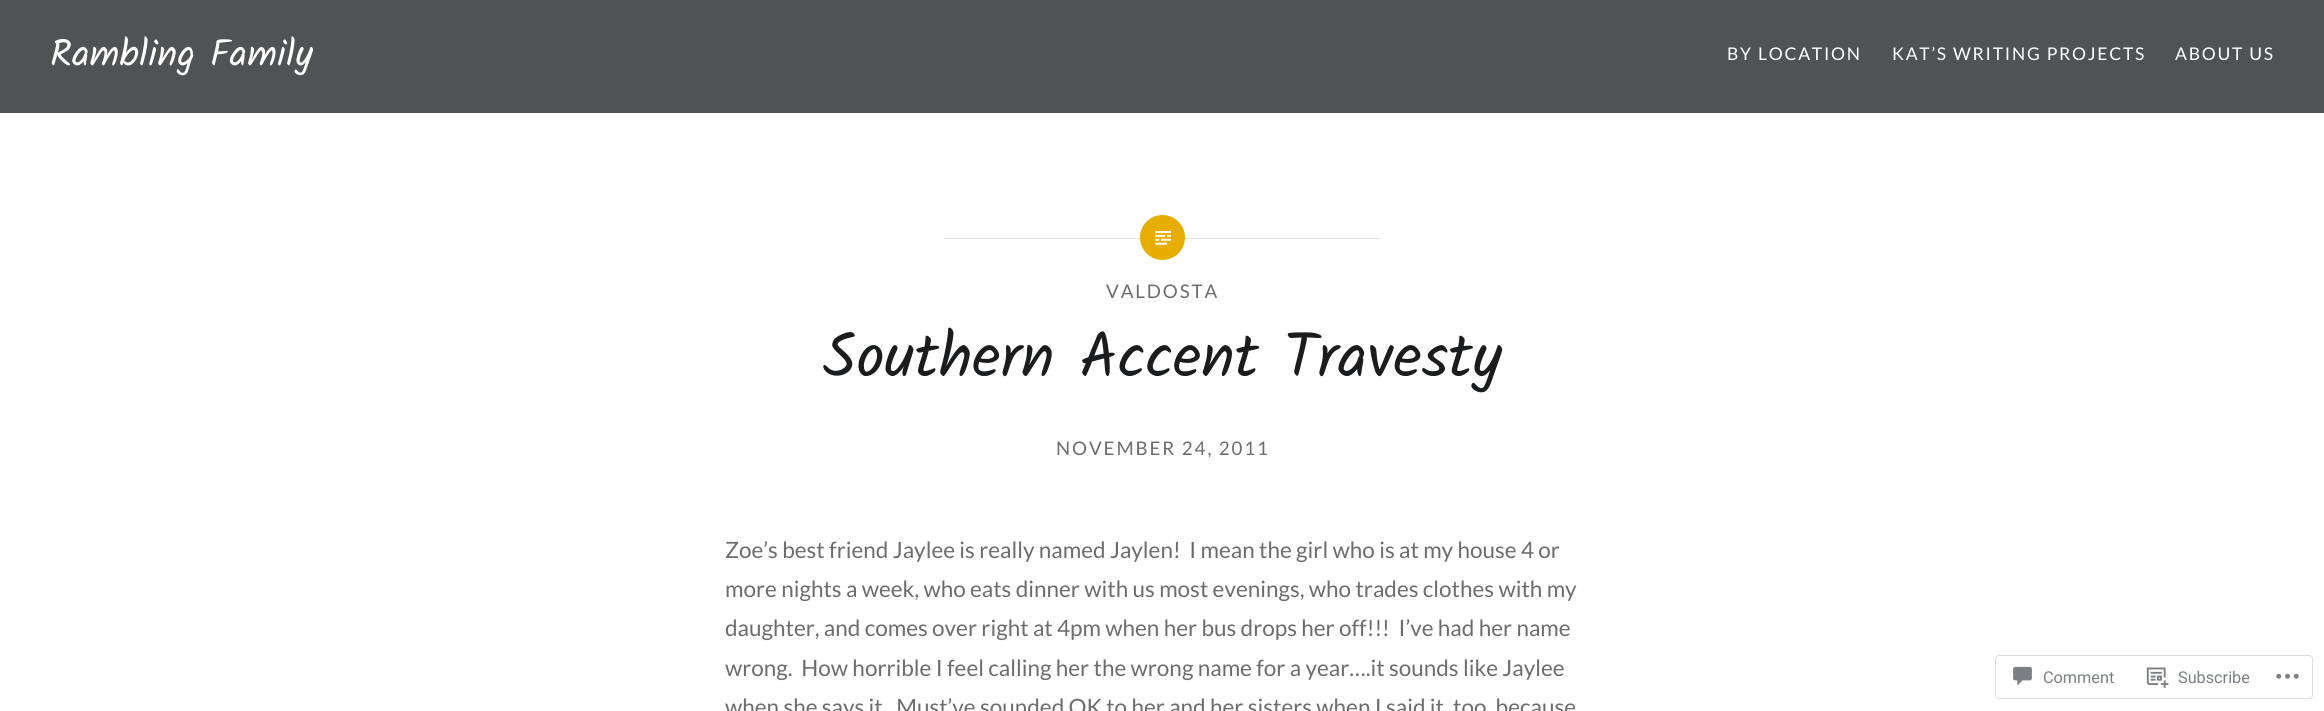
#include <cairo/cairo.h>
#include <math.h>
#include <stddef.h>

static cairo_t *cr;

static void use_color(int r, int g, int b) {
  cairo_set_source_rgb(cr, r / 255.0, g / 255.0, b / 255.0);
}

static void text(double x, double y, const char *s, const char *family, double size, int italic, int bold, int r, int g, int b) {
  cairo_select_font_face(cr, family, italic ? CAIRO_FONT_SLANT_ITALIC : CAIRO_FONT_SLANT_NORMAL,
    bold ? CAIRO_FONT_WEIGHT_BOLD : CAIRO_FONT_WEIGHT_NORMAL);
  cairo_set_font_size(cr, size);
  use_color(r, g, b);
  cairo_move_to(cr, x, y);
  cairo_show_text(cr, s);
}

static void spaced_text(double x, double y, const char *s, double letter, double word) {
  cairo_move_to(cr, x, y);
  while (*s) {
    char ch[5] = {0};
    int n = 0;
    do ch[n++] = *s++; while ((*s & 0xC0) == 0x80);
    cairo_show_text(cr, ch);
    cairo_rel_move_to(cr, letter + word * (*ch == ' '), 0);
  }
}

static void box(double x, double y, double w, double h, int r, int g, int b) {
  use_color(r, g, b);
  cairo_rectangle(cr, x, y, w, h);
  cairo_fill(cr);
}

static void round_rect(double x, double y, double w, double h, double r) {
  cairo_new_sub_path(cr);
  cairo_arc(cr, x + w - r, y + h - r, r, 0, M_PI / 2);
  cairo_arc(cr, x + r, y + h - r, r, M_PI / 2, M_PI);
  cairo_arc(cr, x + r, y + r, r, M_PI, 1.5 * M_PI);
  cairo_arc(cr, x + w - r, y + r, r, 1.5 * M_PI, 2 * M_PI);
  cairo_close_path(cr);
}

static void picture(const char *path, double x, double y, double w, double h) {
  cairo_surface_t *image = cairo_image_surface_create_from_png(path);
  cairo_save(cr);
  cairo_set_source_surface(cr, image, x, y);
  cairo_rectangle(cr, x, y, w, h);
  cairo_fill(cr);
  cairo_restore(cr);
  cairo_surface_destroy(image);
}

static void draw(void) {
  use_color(255, 255, 255);
  cairo_paint(cr);
  box(0, 0, 2324, 113, 80, 82, 84);
  box(944, 238, 437, 1, 224, 224, 224);
  use_color(231, 174, 1);
  cairo_arc(cr, 1162.5, 237.5, 22.5, 0, 2 * M_PI);
  cairo_fill(cr);
  picture("img_01.png", 1155, 231, 16, 14);
  round_rect(1995.5, 655.5, 317, 43, 3.5);
  use_color(221, 221, 223);
  cairo_set_line_width(cr, 1);
  cairo_stroke(cr);
  picture("img_02.png", 2013, 666, 19, 20);
  picture("img_03.png", 2146, 667, 23, 21);
  picture("img_04.png", 2276, 673, 23, 6);
  text(50, 66, "Rambling Family", "Kalam", 37.5, 0, 0, 255, 255, 255);
  cairo_select_font_face(cr, "Lato", CAIRO_FONT_SLANT_NORMAL, CAIRO_FONT_WEIGHT_NORMAL);
  cairo_set_font_size(cr, 17.5);
  spaced_text(1727, 60, "BY LOCATION", 1.75, 0);
  spaced_text(1892, 60, "KAT’S WRITING PROJECTS", 1.75, 0);
  spaced_text(2175, 60, "ABOUT US", 1.75, 0);
  cairo_set_font_size(cr, 18.75);
  use_color(106, 108, 110);
  spaced_text(1106, 298, "VALDOSTA", 1.9, 0);
  text(823, 377, "Southern Accent Travesty", "Kalam", 62.5, 0, 0, 26, 28, 30);
  cairo_select_font_face(cr, "Lato", CAIRO_FONT_SLANT_NORMAL, CAIRO_FONT_WEIGHT_NORMAL);
  cairo_set_font_size(cr, 18.75);
  use_color(106, 108, 110);
  spaced_text(1056, 455, "NOVEMBER 24, 2011", 1.9, 0);
  text(725, 558, "Zoe’s best friend Jaylee is really named Jaylen!  I mean the girl who is at my house 4 or", "Lato", 22.5, 0, 0, 106, 108, 110);
  text(725, 597, "more nights a week, who eats dinner with us most evenings, who trades clothes with my", "Lato", 22.5, 0, 0, 106, 108, 110);
  text(725, 636, "daughter, and comes over right at 4pm when her bus drops her off!!!  I’ve had her name", "Lato", 22.5, 0, 0, 106, 108, 110);
  text(725, 676, "wrong.  How horrible I feel calling her the wrong name for a year….it sounds like Jaylee", "Lato", 22.5, 0, 0, 106, 108, 110);
  text(725, 715, "when she says it.  Must’ve sounded OK to her and her sisters when I said it, too, because", "Lato", 22.5, 0, 0, 106, 108, 110);
  text(2043, 683, "Comment", "Roboto", 16.25, 0, 0, 123, 127, 133);
  text(2178, 683, "Subscribe", "Roboto", 16.25, 0, 0, 123, 127, 133);
}

int main(void) {
  cairo_surface_t *surface = cairo_image_surface_create(CAIRO_FORMAT_RGB24, 2324, 711);
  cr = cairo_create(surface);
  cairo_font_options_t *options = cairo_font_options_create();
  cairo_font_options_set_hint_metrics(options, CAIRO_HINT_METRICS_OFF);
  cairo_font_options_set_hint_style(options, CAIRO_HINT_STYLE_NONE);
  cairo_set_font_options(cr, options);
  cairo_set_miter_limit(cr, 4);
  draw();
  cairo_surface_write_to_png(surface, "out.png");
  cairo_font_options_destroy(options);
  cairo_destroy(cr);
  cairo_surface_destroy(surface);
  return 0;
}
